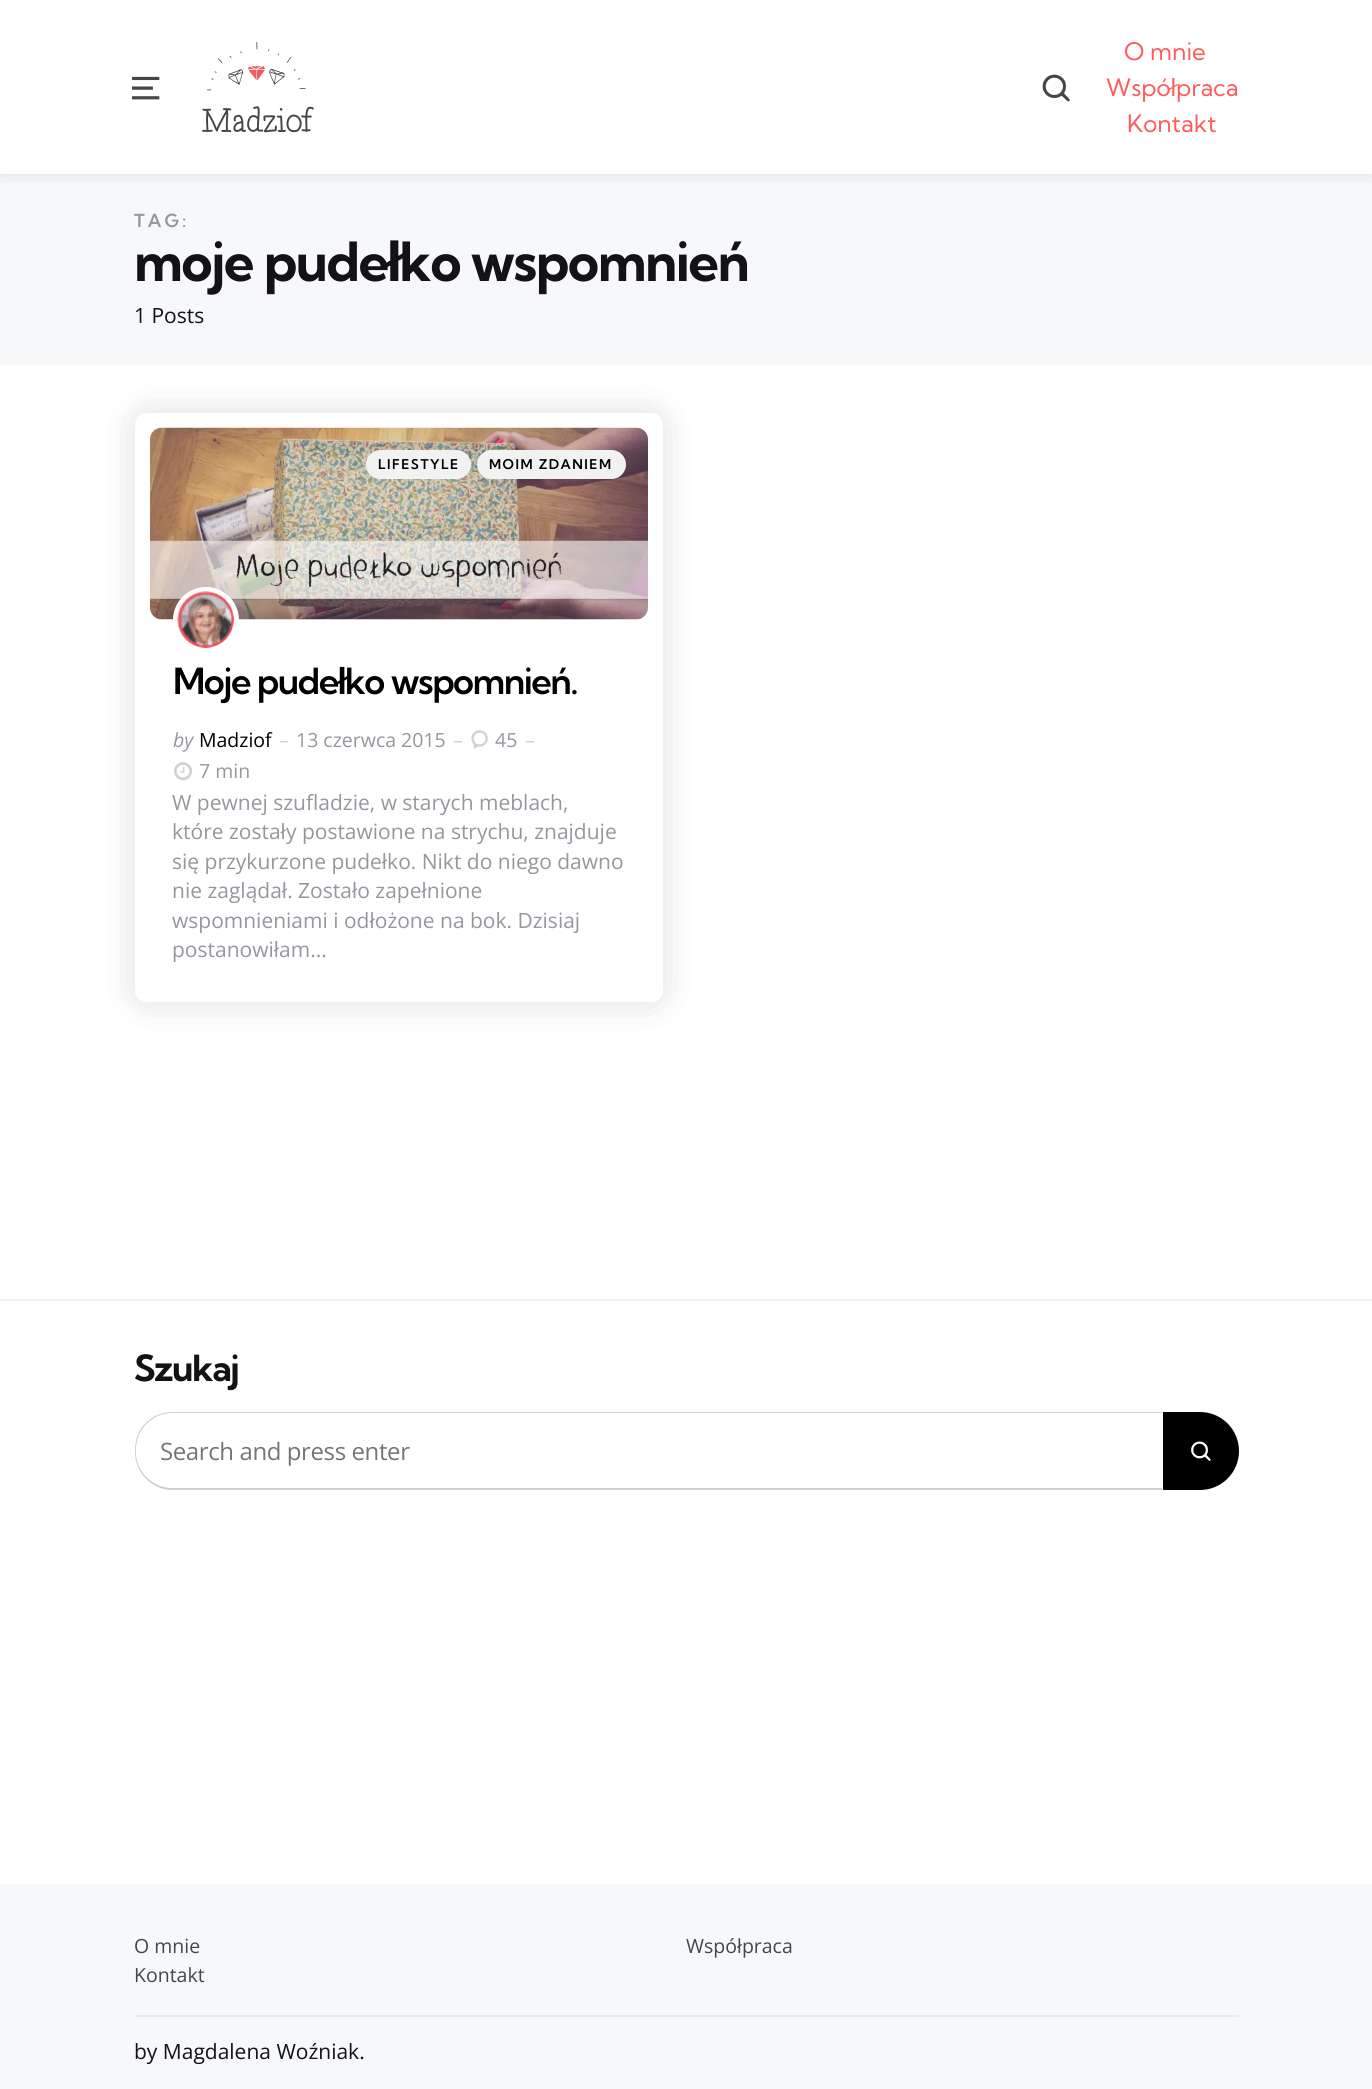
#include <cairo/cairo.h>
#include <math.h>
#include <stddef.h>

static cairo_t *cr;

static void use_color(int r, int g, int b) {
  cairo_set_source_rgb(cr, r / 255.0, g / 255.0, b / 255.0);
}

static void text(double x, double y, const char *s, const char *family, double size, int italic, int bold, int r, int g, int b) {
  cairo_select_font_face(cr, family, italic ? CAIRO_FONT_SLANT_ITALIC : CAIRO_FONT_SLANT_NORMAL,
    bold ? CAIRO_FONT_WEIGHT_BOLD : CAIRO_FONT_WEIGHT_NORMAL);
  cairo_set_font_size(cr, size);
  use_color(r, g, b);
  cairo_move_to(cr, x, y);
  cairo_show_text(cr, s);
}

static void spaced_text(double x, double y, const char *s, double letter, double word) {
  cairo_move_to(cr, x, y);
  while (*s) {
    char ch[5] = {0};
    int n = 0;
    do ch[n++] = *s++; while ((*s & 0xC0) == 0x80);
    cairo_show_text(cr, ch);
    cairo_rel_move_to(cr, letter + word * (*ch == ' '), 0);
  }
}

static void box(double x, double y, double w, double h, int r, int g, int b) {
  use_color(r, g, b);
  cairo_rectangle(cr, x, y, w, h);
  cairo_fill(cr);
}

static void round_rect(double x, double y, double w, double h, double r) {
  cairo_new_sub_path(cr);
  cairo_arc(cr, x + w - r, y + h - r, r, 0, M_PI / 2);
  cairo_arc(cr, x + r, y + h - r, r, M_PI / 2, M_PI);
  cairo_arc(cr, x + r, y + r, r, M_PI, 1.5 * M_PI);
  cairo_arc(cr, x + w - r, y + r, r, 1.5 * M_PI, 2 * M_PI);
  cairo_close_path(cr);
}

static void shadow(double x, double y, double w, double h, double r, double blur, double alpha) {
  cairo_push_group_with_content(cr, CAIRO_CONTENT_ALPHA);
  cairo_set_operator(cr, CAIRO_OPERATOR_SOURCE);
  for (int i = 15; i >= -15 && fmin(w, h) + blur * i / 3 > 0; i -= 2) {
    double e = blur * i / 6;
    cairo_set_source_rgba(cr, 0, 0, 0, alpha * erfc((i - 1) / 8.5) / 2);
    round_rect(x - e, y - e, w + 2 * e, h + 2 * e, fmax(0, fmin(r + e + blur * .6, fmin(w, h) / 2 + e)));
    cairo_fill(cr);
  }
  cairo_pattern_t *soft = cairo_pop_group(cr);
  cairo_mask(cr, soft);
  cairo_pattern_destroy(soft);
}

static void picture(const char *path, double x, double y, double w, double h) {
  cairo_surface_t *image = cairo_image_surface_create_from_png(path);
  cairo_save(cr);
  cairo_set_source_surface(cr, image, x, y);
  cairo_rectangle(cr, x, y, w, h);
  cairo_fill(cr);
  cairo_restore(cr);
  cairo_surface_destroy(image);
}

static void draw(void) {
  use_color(255, 255, 255);
  cairo_paint(cr);
  box(0, 174, 1372, 191, 247, 248, 250);
  cairo_save(cr);
  cairo_rectangle(cr, 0, 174, 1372, 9);
  cairo_clip(cr);
  use_color(0, 0, 0);
  shadow(0, 0, 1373, 174, 0, 11, 0.1);
  cairo_restore(cr);
  picture("img_01.png", 132, 76, 28, 24);
  picture("img_02.png", 202, 42, 112, 91);
  picture("img_03.png", 1042, 74, 28, 28);
  box(0, 1299, 1372, 2, 242, 242, 243);
  use_color(0, 0, 0);
  shadow(135, 413, 528, 589, 12, 19, 0.07);
  shadow(135, 413, 528, 589, 12, 19, 0.07);
  use_color(255, 255, 255);
  round_rect(135, 413, 528, 589, 12);
  cairo_fill(cr);
  picture("img_04.png", 150, 427, 498, 193);
  cairo_new_path(cr);
  cairo_move_to(cr, 135, 620);
  cairo_line_to(cr, 663, 620);
  cairo_line_to(cr, 663, 990);
  cairo_curve_to(cr, 663, 996.5, 657.5, 1002, 651, 1002);
  cairo_line_to(cr, 147, 1002);
  cairo_curve_to(cr, 140.5, 1002, 135, 996.5, 135, 990);
  cairo_close_path(cr);
  cairo_fill(cr);
  use_color(242, 242, 243);
  round_rect(366, 450, 105, 29, 14.5);
  cairo_fill(cr);
  round_rect(477, 450, 149, 29, 14.5);
  cairo_fill(cr);
  picture("img_05.png", 471, 730, 17, 19);
  picture("img_06.png", 174, 762, 18, 19);
  use_color(255, 255, 255);
  cairo_arc(cr, 206, 620, 33, 0, 2 * M_PI);
  cairo_fill(cr);
  picture("img_07.png", 177, 591, 57, 57);
  use_color(207, 208, 210);
  cairo_set_fill_rule(cr, CAIRO_FILL_RULE_EVEN_ODD);
  cairo_new_path(cr);
  cairo_move_to(cr, 172, 1412);
  cairo_line_to(cr, 1162, 1412);
  cairo_line_to(cr, 1162, 1490);
  cairo_line_to(cr, 172, 1490);
  cairo_curve_to(cr, 152, 1490, 135, 1473, 135, 1452);
  cairo_line_to(cr, 135, 1449);
  cairo_curve_to(cr, 135, 1428, 152, 1412, 172, 1412);
  cairo_close_path(cr);
  cairo_move_to(cr, 172, 1413);
  cairo_line_to(cr, 1162, 1413);
  cairo_line_to(cr, 1162, 1488);
  cairo_line_to(cr, 172, 1488);
  cairo_curve_to(cr, 153, 1488, 136, 1472, 136, 1452);
  cairo_line_to(cr, 136, 1449);
  cairo_curve_to(cr, 136, 1429, 153, 1413, 172, 1413);
  cairo_close_path(cr);
  cairo_fill(cr);
  use_color(0, 0, 0);
  cairo_new_path(cr);
  cairo_move_to(cr, 1163, 1412);
  cairo_line_to(cr, 1200, 1412);
  cairo_curve_to(cr, 1221.5, 1412, 1239, 1429.5, 1239, 1451);
  cairo_curve_to(cr, 1239, 1472.5, 1221.5, 1490, 1200, 1490);
  cairo_line_to(cr, 1163, 1490);
  cairo_close_path(cr);
  cairo_fill(cr);
  picture("img_08.png", 1191, 1441, 20, 20);
  box(0, 1884, 1372, 205, 247, 248, 250);
  box(135, 2015, 1104, 2, 235, 235, 235);
  text(1124, 60, "O mnie", "Kumbh Sans", 24, 0, 0, 255, 91, 91);
  text(1106, 96, "Współpraca", "Kumbh Sans", 24, 0, 0, 255, 91, 91);
  text(1127, 132, "Kontakt", "Kumbh Sans", 24, 0, 0, 255, 91, 91);
  cairo_select_font_face(cr, "Kumbh Sans SemiBold", CAIRO_FONT_SLANT_NORMAL, CAIRO_FONT_WEIGHT_NORMAL);
  cairo_set_font_size(cr, 18);
  use_color(148, 151, 158);
  spaced_text(134, 227, "TAG:", 3, 0);
  cairo_select_font_face(cr, "Kumbh Sans", CAIRO_FONT_SLANT_NORMAL, CAIRO_FONT_WEIGHT_BOLD);
  cairo_set_font_size(cr, 54);
  use_color(19, 19, 21);
  spaced_text(134, 281, "moje pudełko wspomnień", -1.5, 0);
  text(134, 323, "1 Posts", "Open Sans", 21, 0, 0, 19, 19, 21);
  cairo_select_font_face(cr, "Kumbh Sans SemiBold", CAIRO_FONT_SLANT_NORMAL, CAIRO_FONT_WEIGHT_NORMAL);
  cairo_set_font_size(cr, 13.5);
  use_color(0, 0, 0);
  spaced_text(378, 469, "LIFESTYLE", 1.5, 0);
  spaced_text(489, 469, "MOIM ZDANIEM", 1.5, 0);
  cairo_set_font_size(cr, 36);
  spaced_text(173, 694, "Moje pudełko wspomnień.", -1.5, 0);
  text(173, 747, "by", "Open Sans", 19.5, 1, 0, 148, 151, 158);
  text(199, 747, "Madziof", "Open Sans", 19.5, 0, 0, 0, 0, 0);
  text(279, 747, "–", "Open Sans", 19.5, 0, 0, 207, 208, 210);
  text(296, 747, "13 czerwca 2015", "Open Sans", 19.5, 0, 0, 148, 151, 158);
  text(453, 747, "–", "Open Sans", 19.5, 0, 0, 207, 208, 210);
  text(495, 747, "45", "Open Sans", 19.5, 0, 0, 148, 151, 158);
  text(525, 747, "–", "Open Sans", 19.5, 0, 0, 207, 208, 210);
  text(199, 778, "7 min", "Open Sans", 19.5, 0, 0, 148, 151, 158);
  text(172, 810, "W pewnej szufladzie, w starych meblach,", "Open Sans", 21, 0, 0, 148, 151, 158);
  text(172, 839, "które zostały postawione na strychu, znajduje", "Open Sans", 21, 0, 0, 148, 151, 158);
  text(172, 869, "się przykurzone pudełko. Nikt do niego dawno", "Open Sans", 21, 0, 0, 148, 151, 158);
  text(172, 898, "nie zaglądał. Zostało zapełnione", "Open Sans", 21, 0, 0, 148, 151, 158);
  text(172, 928, "wspomnieniami i odłożone na bok. Dzisiaj", "Open Sans", 21, 0, 0, 148, 151, 158);
  text(172, 957, "postanowiłam...", "Open Sans", 21, 0, 0, 148, 151, 158);
  cairo_select_font_face(cr, "Kumbh Sans", CAIRO_FONT_SLANT_NORMAL, CAIRO_FONT_WEIGHT_BOLD);
  cairo_set_font_size(cr, 36);
  use_color(19, 19, 21);
  spaced_text(134, 1381, "Szukaj", -1.5, 0);
  cairo_select_font_face(cr, "Open Sans", CAIRO_FONT_SLANT_NORMAL, CAIRO_FONT_WEIGHT_NORMAL);
  cairo_set_font_size(cr, 24);
  use_color(117, 117, 117);
  spaced_text(160, 1460, "Search and press enter", -0.4, 0);
  text(134, 1953, "O mnie", "Open Sans", 19.5, 0, 0, 68, 70, 75);
  text(686, 1953, "Współpraca", "Open Sans", 19.5, 0, 0, 68, 70, 75);
  text(134, 1982, "Kontakt", "Open Sans", 19.5, 0, 0, 68, 70, 75);
  text(134, 2059, "by Magdalena Woźniak.", "Open Sans", 21, 0, 0, 19, 19, 21);
}

int main(void) {
  cairo_surface_t *surface = cairo_image_surface_create(CAIRO_FORMAT_RGB24, 1372, 2089);
  cr = cairo_create(surface);
  cairo_font_options_t *options = cairo_font_options_create();
  cairo_font_options_set_hint_metrics(options, CAIRO_HINT_METRICS_OFF);
  cairo_font_options_set_hint_style(options, CAIRO_HINT_STYLE_NONE);
  cairo_set_font_options(cr, options);
  cairo_set_miter_limit(cr, 4);
  draw();
  cairo_surface_write_to_png(surface, "out.png");
  cairo_font_options_destroy(options);
  cairo_destroy(cr);
  cairo_surface_destroy(surface);
  return 0;
}
